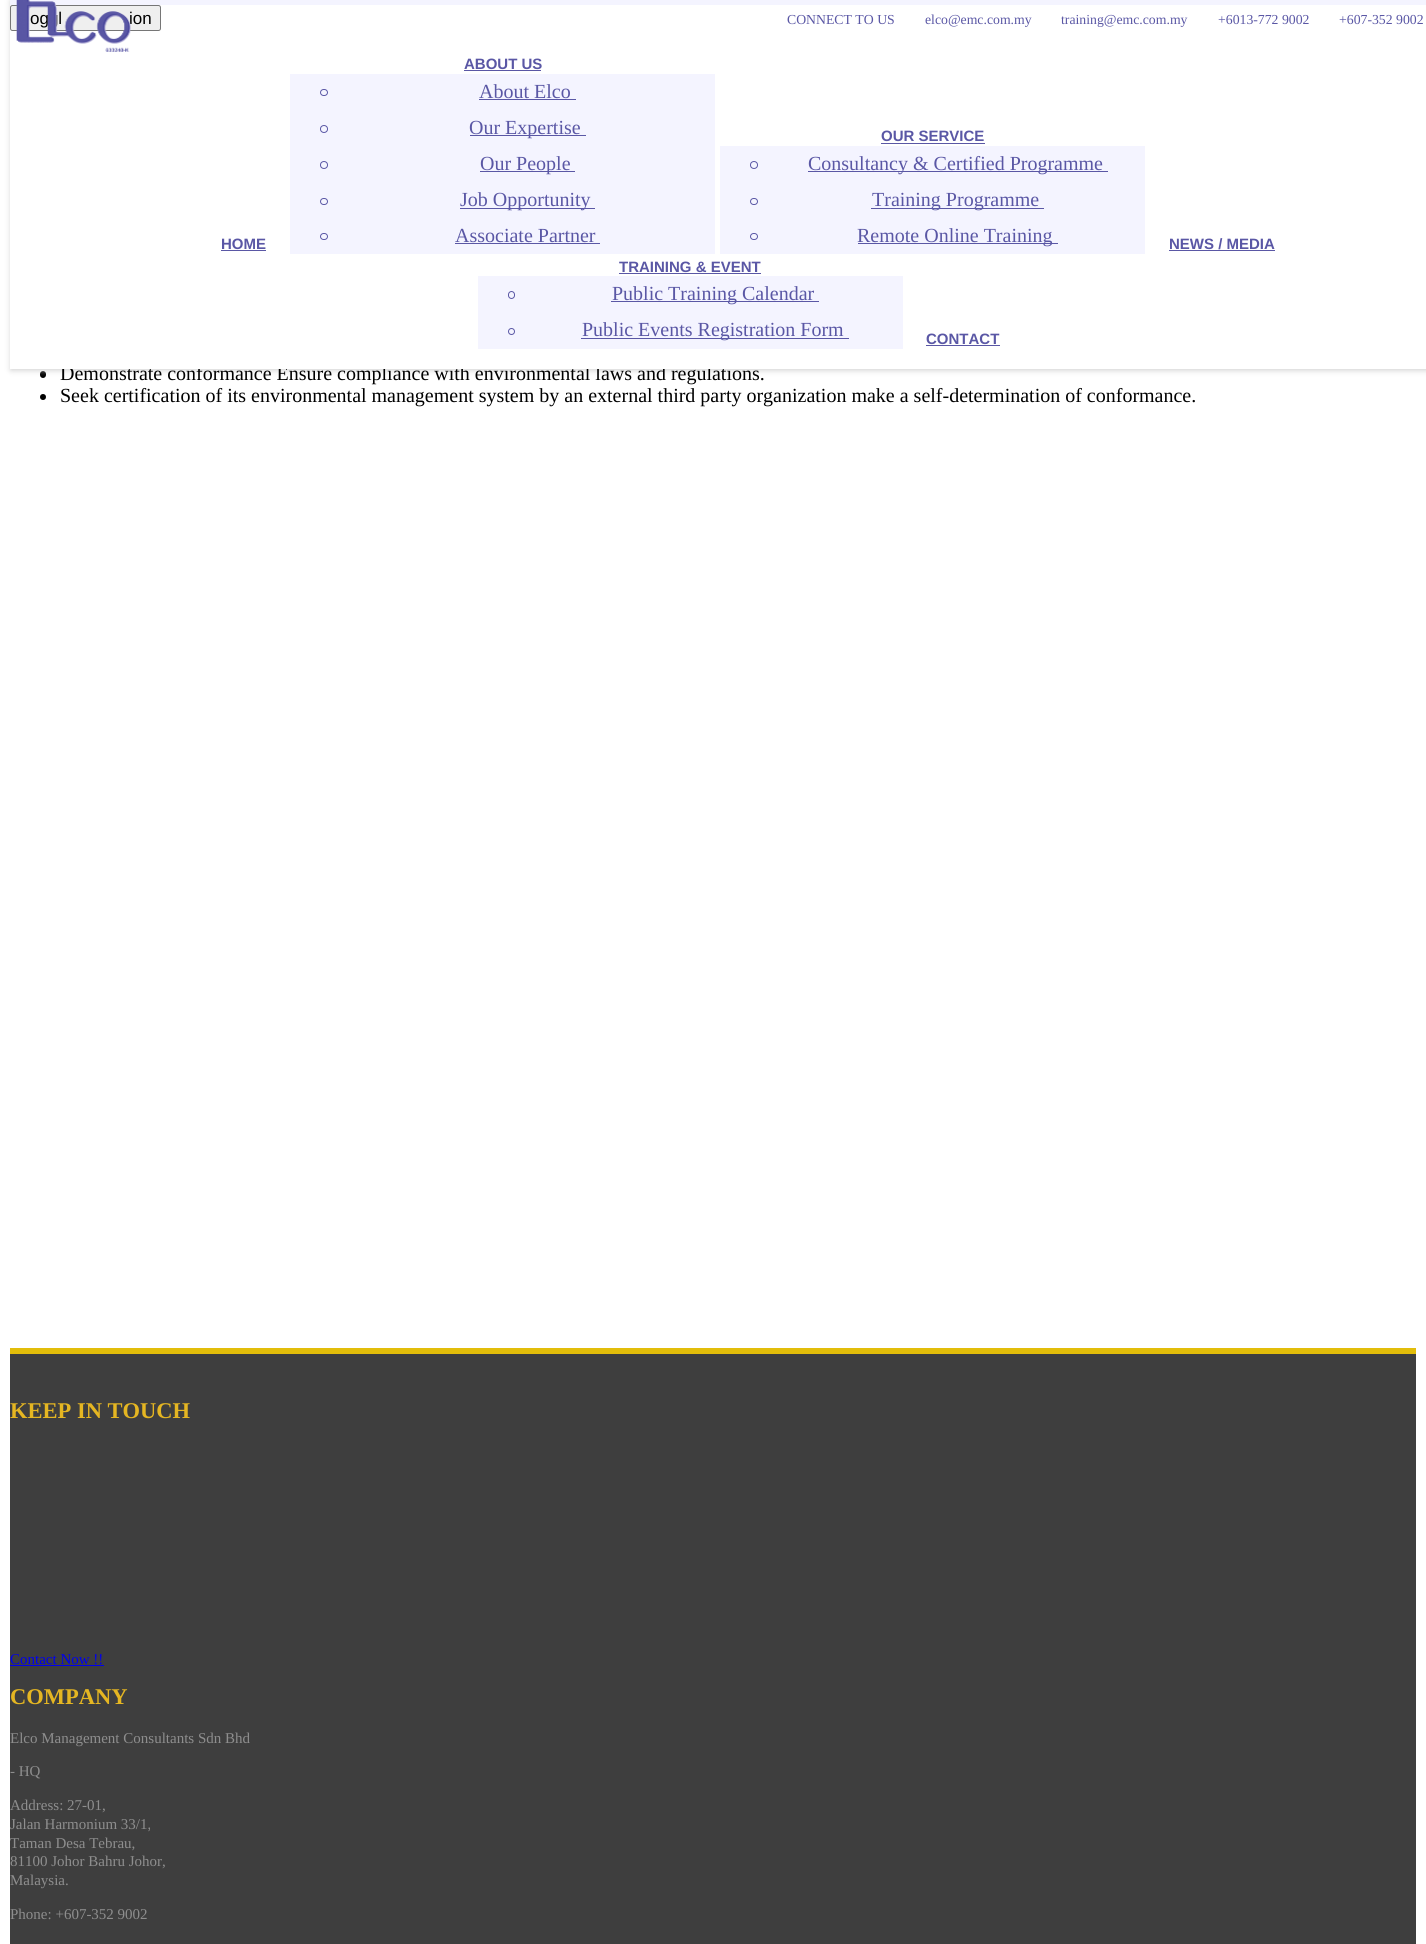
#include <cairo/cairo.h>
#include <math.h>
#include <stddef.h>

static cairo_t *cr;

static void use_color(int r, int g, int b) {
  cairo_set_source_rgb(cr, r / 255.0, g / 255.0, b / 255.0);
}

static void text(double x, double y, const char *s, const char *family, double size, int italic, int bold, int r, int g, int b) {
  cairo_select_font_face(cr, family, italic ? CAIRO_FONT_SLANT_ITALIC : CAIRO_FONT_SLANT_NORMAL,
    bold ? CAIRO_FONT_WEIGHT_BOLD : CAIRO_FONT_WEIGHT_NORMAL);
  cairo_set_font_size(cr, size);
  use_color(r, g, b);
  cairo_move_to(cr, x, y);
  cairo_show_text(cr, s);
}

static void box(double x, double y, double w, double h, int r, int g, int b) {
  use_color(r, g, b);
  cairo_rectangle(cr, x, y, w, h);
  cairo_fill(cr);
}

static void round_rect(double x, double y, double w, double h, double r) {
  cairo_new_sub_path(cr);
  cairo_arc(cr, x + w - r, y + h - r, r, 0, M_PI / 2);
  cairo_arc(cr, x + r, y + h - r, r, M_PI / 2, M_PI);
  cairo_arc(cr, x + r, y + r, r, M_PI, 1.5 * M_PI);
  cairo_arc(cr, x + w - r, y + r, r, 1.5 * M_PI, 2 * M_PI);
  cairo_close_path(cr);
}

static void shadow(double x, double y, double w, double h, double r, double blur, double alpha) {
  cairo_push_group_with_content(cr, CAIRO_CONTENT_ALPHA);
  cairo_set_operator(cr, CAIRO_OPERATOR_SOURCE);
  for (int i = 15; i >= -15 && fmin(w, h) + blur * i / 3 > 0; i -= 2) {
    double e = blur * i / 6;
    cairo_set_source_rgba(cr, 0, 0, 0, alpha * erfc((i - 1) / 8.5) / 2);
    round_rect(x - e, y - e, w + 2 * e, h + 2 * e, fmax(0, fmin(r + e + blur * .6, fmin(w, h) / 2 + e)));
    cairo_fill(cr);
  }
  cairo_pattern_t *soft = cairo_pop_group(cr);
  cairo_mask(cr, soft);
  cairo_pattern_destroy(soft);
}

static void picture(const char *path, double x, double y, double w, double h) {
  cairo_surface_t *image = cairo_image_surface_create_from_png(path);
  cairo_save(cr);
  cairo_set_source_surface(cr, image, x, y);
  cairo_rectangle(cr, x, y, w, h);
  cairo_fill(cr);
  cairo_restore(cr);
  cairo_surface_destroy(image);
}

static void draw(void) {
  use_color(255, 255, 255);
  cairo_paint(cr);
  use_color(0, 0, 0);
  round_rect(40, 371, 6, 7, 3);
  cairo_fill(cr);
  use_color(204, 204, 204);
  shadow(11, 1, 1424, 369, 0, 3, 1);
  box(10, 0, 1416, 5, 244, 244, 255);
  use_color(0, 0, 0);
  cairo_arc(cr, 43, 397, 3, 0, 2 * M_PI);
  cairo_fill(cr);
  box(10, 1354, 1406, 590, 62, 62, 62);
  box(10, 1348, 1406, 6, 226, 189, 10);
  box(10, 1665, 94, 1, 0, 0, 238);
  text(60, 380, "Demonstrate conformance Ensure compliance with environmental laws and regulations.", "Liberation Serif", 20, 0, 0, 0, 0, 0);
  box(10, 5, 1416, 364, 255, 255, 255);
  text(926, 344, "CONTACT", "Liberation Sans", 15, 0, 1, 90, 87, 165);
  box(926, 345, 74, 1, 90, 87, 165);
  box(478, 276, 425, 73, 244, 244, 255);
  box(581, 338, 268, 1, 90, 87, 165);
  text(582, 336, "Public Events Registration Form", "Liberation Serif", 20, 0, 0, 90, 87, 165);
  cairo_new_path(cr);
  cairo_arc(cr, 511.5, 331.5, 3, 0, 2 * M_PI);
  cairo_set_line_width(cr, 1);
  cairo_stroke(cr);
  box(611, 301, 208, 1, 90, 87, 165);
  text(612, 300, "Public Training Calendar", "Liberation Serif", 20, 0, 0, 90, 87, 165);
  round_rect(508.5, 291.5, 6, 7, 3);
  cairo_stroke(cr);
  text(619, 272, "TRAINING & EVENT", "Liberation Sans", 15, 0, 1, 90, 87, 165);
  box(619, 273, 142, 1, 90, 87, 165);
  text(1169, 249, "NEWS / MEDIA", "Liberation Sans", 15, 0, 1, 90, 87, 165);
  box(1169, 250, 106, 1, 90, 87, 165);
  box(720, 146, 425, 108, 244, 244, 255);
  box(858, 243, 200, 1, 90, 87, 165);
  text(857, 242, "Remote Online Training", "Liberation Serif", 20, 0, 0, 90, 87, 165);
  round_rect(750.5, 233.5, 7, 6, 3);
  cairo_stroke(cr);
  box(871, 208, 173, 1, 90, 87, 165);
  text(872, 206, "Training Programme", "Liberation Serif", 20, 0, 0, 90, 87, 165);
  round_rect(750.5, 198.5, 7, 6, 3);
  cairo_stroke(cr);
  box(808, 171, 300, 1, 90, 87, 165);
  text(808, 170, "Consultancy & Certified Programme", "Liberation Serif", 20, 0, 0, 90, 87, 165);
  cairo_new_path(cr);
  cairo_arc(cr, 754, 165, 3.5, 0, 2 * M_PI);
  cairo_stroke(cr);
  text(881, 141, "OUR SERVICE", "Liberation Sans", 15, 0, 1, 90, 87, 165);
  box(881, 143, 104, 1, 90, 87, 165);
  box(290, 74, 425, 180, 244, 244, 255);
  text(455, 242, "Associate Partner", "Liberation Serif", 20, 0, 0, 90, 87, 165);
  box(455, 243, 145, 1, 90, 87, 165);
  round_rect(320.5, 233.5, 7, 6, 3);
  cairo_stroke(cr);
  box(460, 208, 135, 1, 90, 87, 165);
  text(460, 206, "Job Opportunity", "Liberation Serif", 20, 0, 0, 90, 87, 165);
  round_rect(320.5, 198.5, 7, 6, 3);
  cairo_stroke(cr);
  box(480, 171, 95, 1, 90, 87, 165);
  text(480, 170, "Our People", "Liberation Serif", 20, 0, 0, 90, 87, 165);
  cairo_new_path(cr);
  cairo_arc(cr, 324, 165, 3.5, 0, 2 * M_PI);
  cairo_stroke(cr);
  box(470, 135, 116, 1, 90, 87, 165);
  text(469, 134, "Our Expertise", "Liberation Serif", 20, 0, 0, 90, 87, 165);
  cairo_new_path(cr);
  cairo_arc(cr, 324, 129, 3.5, 0, 2 * M_PI);
  cairo_stroke(cr);
  text(479, 98, "About Elco", "Liberation Serif", 20, 0, 0, 90, 87, 165);
  box(479, 99, 97, 1, 90, 87, 165);
  round_rect(320.5, 89.5, 7, 6, 3);
  cairo_stroke(cr);
  text(464, 69, "ABOUT US", "Liberation Sans", 15, 0, 1, 90, 87, 165);
  box(464, 70, 77, 1, 90, 87, 165);
  text(221, 249, "HOME", "Liberation Sans", 15, 0, 1, 90, 87, 165);
  box(221, 250, 45, 1, 90, 87, 165);
  use_color(239, 239, 239);
  round_rect(10.5, 5.5, 150, 25, 2);
  cairo_fill_preserve(cr);
  use_color(118, 118, 118);
  cairo_stroke(cr);
  text(129, 24, "ion", "Liberation Sans", 17, 0, 0, 0, 0, 0);
  text(30, 24, "oggl", "Liberation Sans", 17, 0, 0, 0, 0, 0);
  picture("img_01.png", 16, 0, 115, 52);
  text(1339, 24, "+607-352 9002", "Liberation Serif", 13.75, 0, 0, 90, 87, 165);
  text(1218, 24, "+6013-772 9002", "Liberation Serif", 13.75, 0, 0, 90, 87, 165);
  text(1061, 24, "training@emc.com.my", "Liberation Serif", 13.75, 0, 0, 90, 87, 165);
  text(925, 24, "elco@emc.com.my", "Liberation Serif", 13.75, 0, 0, 90, 87, 165);
  text(787, 24, "CONNECT TO US", "Liberation Serif", 13.75, 0, 0, 90, 87, 165);
  text(60, 402, "Seek certification of its environmental management system by an external third party organization make a self-determination of conformance.", "Liberation Serif", 20, 0, 0, 0, 0, 0);
  text(10, 1418, "KEEP IN TOUCH", "Liberation Serif", 22.5, 0, 1, 229, 182, 34);
  text(10, 1664, "Contact Now !!", "Liberation Serif", 15, 0, 0, 0, 0, 238);
  text(10, 1704, "COMPANY", "Liberation Serif", 22.5, 0, 1, 229, 182, 34);
  text(10, 1743, "Elco Management Consultants Sdn Bhd", "Liberation Serif", 15, 0, 0, 142, 142, 142);
  text(10, 1776, "- HQ", "Liberation Serif", 15, 0, 0, 142, 142, 142);
  text(10, 1810, "Address: 27-01,", "Liberation Serif", 15, 0, 0, 142, 142, 142);
  text(10, 1829, "Jalan Harmonium 33/1,", "Liberation Serif", 15, 0, 0, 142, 142, 142);
  text(10, 1848, "Taman Desa Tebrau,", "Liberation Serif", 15, 0, 0, 142, 142, 142);
  text(10, 1866, "81100 Johor Bahru Johor,", "Liberation Serif", 15, 0, 0, 142, 142, 142);
  text(10, 1885, "Malaysia.", "Liberation Serif", 15, 0, 0, 142, 142, 142);
  text(10, 1919, "Phone: +607-352 9002", "Liberation Serif", 15, 0, 0, 142, 142, 142);
}

int main(void) {
  cairo_surface_t *surface = cairo_image_surface_create(CAIRO_FORMAT_RGB24, 1426, 1944);
  cr = cairo_create(surface);
  cairo_font_options_t *options = cairo_font_options_create();
  cairo_font_options_set_hint_metrics(options, CAIRO_HINT_METRICS_OFF);
  cairo_font_options_set_hint_style(options, CAIRO_HINT_STYLE_NONE);
  cairo_set_font_options(cr, options);
  cairo_set_miter_limit(cr, 4);
  draw();
  cairo_surface_write_to_png(surface, "out.png");
  cairo_font_options_destroy(options);
  cairo_destroy(cr);
  cairo_surface_destroy(surface);
  return 0;
}
